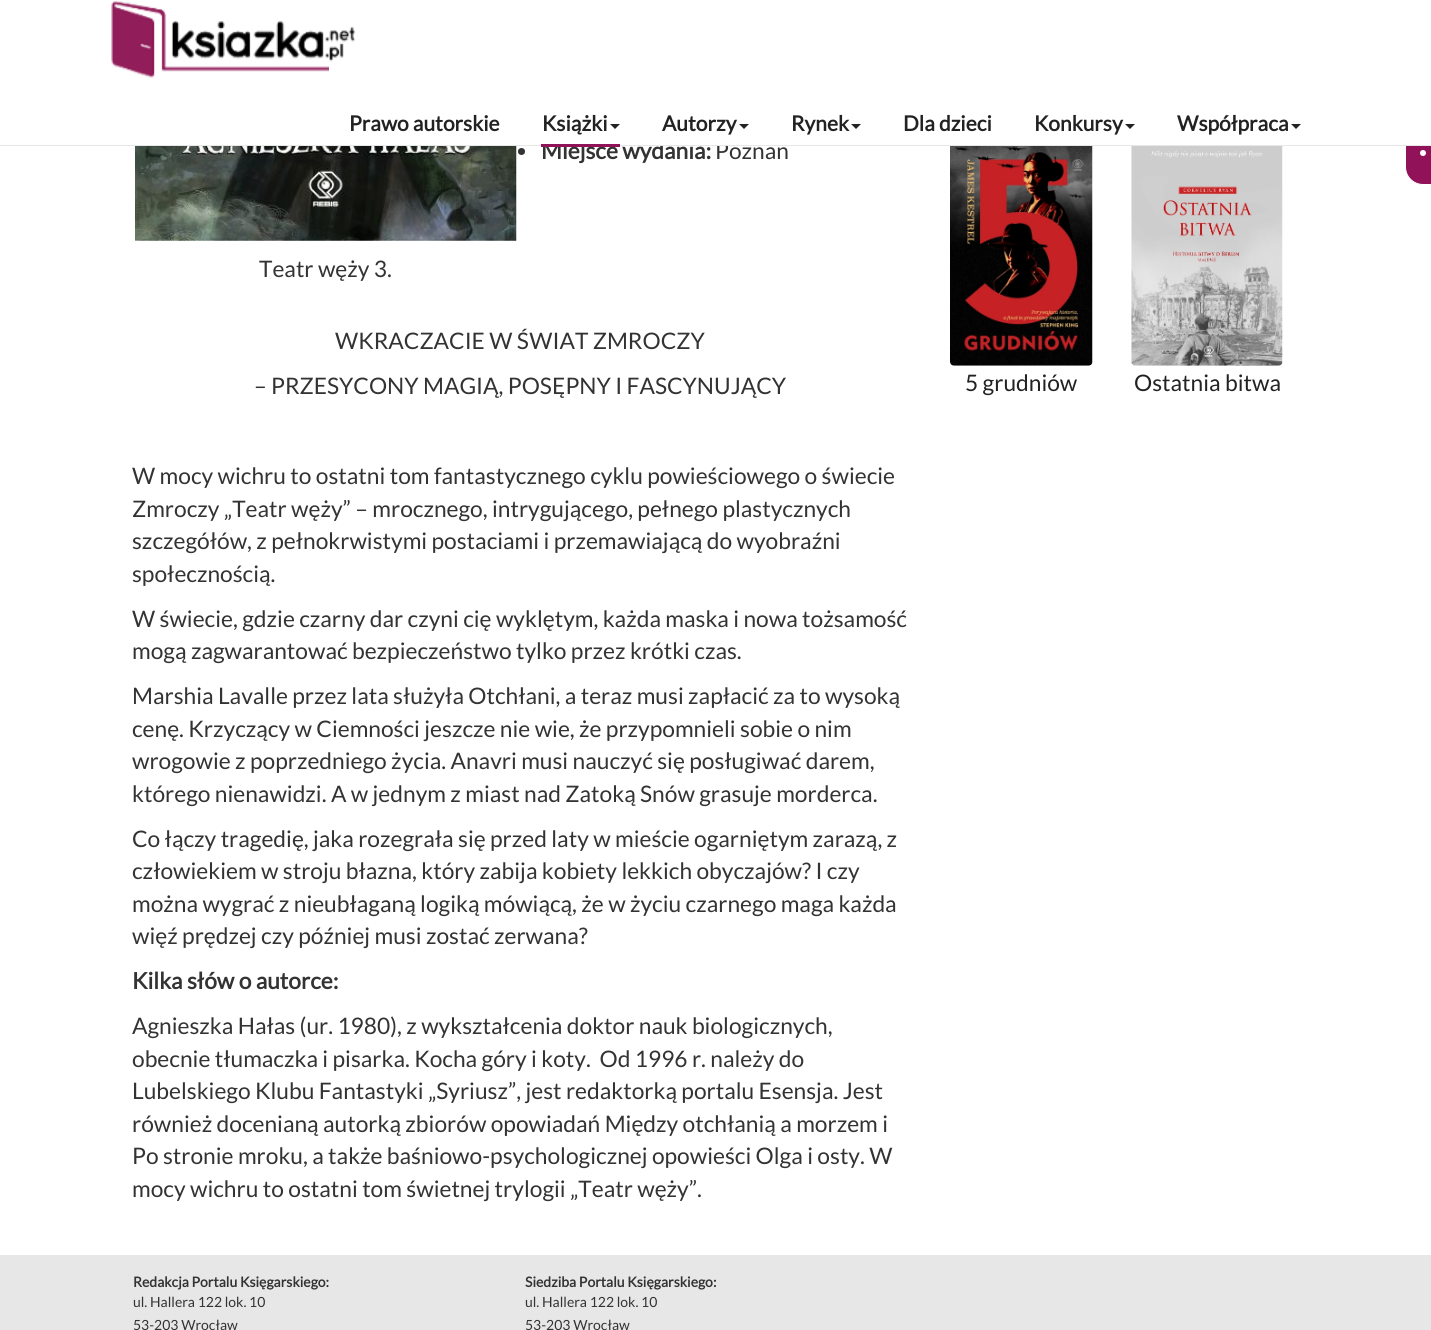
#include <cairo/cairo.h>
#include <math.h>
#include <stddef.h>

static cairo_t *cr;

static void use_color(int r, int g, int b) {
  cairo_set_source_rgb(cr, r / 255.0, g / 255.0, b / 255.0);
}

static void text(double x, double y, const char *s, const char *family, double size, int italic, int bold, int r, int g, int b) {
  cairo_select_font_face(cr, family, italic ? CAIRO_FONT_SLANT_ITALIC : CAIRO_FONT_SLANT_NORMAL,
    bold ? CAIRO_FONT_WEIGHT_BOLD : CAIRO_FONT_WEIGHT_NORMAL);
  cairo_set_font_size(cr, size);
  use_color(r, g, b);
  cairo_move_to(cr, x, y);
  cairo_show_text(cr, s);
}

static void box(double x, double y, double w, double h, int r, int g, int b) {
  use_color(r, g, b);
  cairo_rectangle(cr, x, y, w, h);
  cairo_fill(cr);
}

static void round_rect(double x, double y, double w, double h, double r) {
  cairo_new_sub_path(cr);
  cairo_arc(cr, x + w - r, y + h - r, r, 0, M_PI / 2);
  cairo_arc(cr, x + r, y + h - r, r, M_PI / 2, M_PI);
  cairo_arc(cr, x + r, y + r, r, M_PI, 1.5 * M_PI);
  cairo_arc(cr, x + w - r, y + r, r, 1.5 * M_PI, 2 * M_PI);
  cairo_close_path(cr);
}

static void picture(const char *path, double x, double y, double w, double h) {
  cairo_surface_t *image = cairo_image_surface_create_from_png(path);
  cairo_save(cr);
  cairo_set_source_surface(cr, image, x, y);
  cairo_rectangle(cr, x, y, w, h);
  cairo_fill(cr);
  cairo_restore(cr);
  cairo_surface_destroy(image);
}

static void draw(void) {
  use_color(255, 255, 255);
  cairo_paint(cr);
  picture("img_01.png", 111, 1, 245, 77);
  box(329, 66, 5, 6, 255, 255, 255);
  use_color(145, 18, 89);
  round_rect(1405.5, 84.5, 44, 100, 17.5);
  cairo_fill_preserve(cr);
  use_color(255, 255, 255);
  cairo_set_line_width(cr, 1);
  cairo_stroke(cr);
  cairo_arc(cr, 1423, 153, 3, 0, 2 * M_PI);
  cairo_fill(cr);
  use_color(51, 51, 51);
  cairo_arc(cr, 521.5, 151.5, 3.5, 0, 2 * M_PI);
  cairo_fill(cr);
  picture("img_02.png", 135, 146, 382, 95);
  picture("img_03.png", 950, 146, 143, 220);
  picture("img_04.png", 1131, 146, 152, 220);
  box(0, 1255, 1431, 75, 231, 231, 231);
  text(349, 131, "Prawo autorskie", "Lato", 21, 0, 1, 34, 34, 34);
  text(541, 159, "Miejsce wydania:", "Lato", 22.75, 0, 1, 51, 51, 51);
  text(715, 159, "Poznań", "Lato", 22.75, 0, 0, 51, 51, 51);
  box(542, 84, 889, 61, 255, 255, 255);
  use_color(34, 34, 34);
  cairo_new_path(cr);
  cairo_move_to(cr, 1291, 124);
  cairo_line_to(cr, 1301, 124);
  cairo_line_to(cr, 1296, 129);
  cairo_close_path(cr);
  cairo_fill(cr);
  text(1177, 131, "Współpraca", "Lato", 21, 0, 1, 34, 34, 34);
  cairo_new_path(cr);
  cairo_move_to(cr, 1125, 124);
  cairo_line_to(cr, 1135, 124);
  cairo_line_to(cr, 1130, 129);
  cairo_close_path(cr);
  cairo_fill(cr);
  text(1034, 131, "Konkursy", "Lato", 21, 0, 1, 34, 34, 34);
  text(903, 131, "Dla dzieci", "Lato", 21, 0, 1, 34, 34, 34);
  cairo_new_path(cr);
  cairo_move_to(cr, 851, 124);
  cairo_line_to(cr, 861, 124);
  cairo_line_to(cr, 856, 129);
  cairo_close_path(cr);
  cairo_fill(cr);
  text(791, 131, "Rynek", "Lato", 21, 0, 1, 34, 34, 34);
  cairo_new_path(cr);
  cairo_move_to(cr, 739, 124);
  cairo_line_to(cr, 749, 124);
  cairo_line_to(cr, 744, 129);
  cairo_close_path(cr);
  cairo_fill(cr);
  text(662, 131, "Autorzy", "Lato", 21, 0, 1, 34, 34, 34);
  box(0, 145, 1431, 1, 231, 231, 231);
  box(541, 144, 79, 3, 145, 18, 89);
  use_color(34, 34, 34);
  cairo_new_path(cr);
  cairo_move_to(cr, 610, 124);
  cairo_line_to(cr, 620, 124);
  cairo_line_to(cr, 615, 129);
  cairo_close_path(cr);
  cairo_fill(cr);
  text(542, 131, "Książki", "Lato", 21, 0, 1, 34, 34, 34);
  text(259, 277, "Teatr węży 3.", "Lato", 22.75, 0, 0, 51, 51, 51);
  text(335, 349, "WKRACZACIE W ŚWIAT ZMROCZY", "Lato", 22.75, 0, 0, 51, 51, 51);
  text(254, 394, "– PRZESYCONY MAGIĄ, POSĘPNY I FASCYNUJĄCY", "Lato", 22.75, 0, 0, 51, 51, 51);
  text(132, 484, "W mocy wichru to ostatni tom fantastycznego cyklu powieściowego o świecie", "Lato", 22.75, 0, 0, 51, 51, 51);
  text(132, 517, "Zmroczy „Teatr węży” – mrocznego, intrygującego, pełnego plastycznych", "Lato", 22.75, 0, 0, 51, 51, 51);
  text(132, 549, "szczegółów, z pełnokrwistymi postaciami i przemawiającą do wyobraźni", "Lato", 22.75, 0, 0, 51, 51, 51);
  text(132, 582, "społecznością.", "Lato", 22.75, 0, 0, 51, 51, 51);
  text(132, 627, "W świecie, gdzie czarny dar czyni cię wyklętym, każda maska i nowa tożsamość", "Lato", 22.75, 0, 0, 51, 51, 51);
  text(132, 659, "mogą zagwarantować bezpieczeństwo tylko przez krótki czas.", "Lato", 22.75, 0, 0, 51, 51, 51);
  text(132, 704, "Marshia Lavalle przez lata służyła Otchłani, a teraz musi zapłacić za to wysoką", "Lato", 22.75, 0, 0, 51, 51, 51);
  text(132, 737, "cenę. Krzyczący w Ciemności jeszcze nie wie, że przypomnieli sobie o nim", "Lato", 22.75, 0, 0, 51, 51, 51);
  text(132, 769, "wrogowie z poprzedniego życia. Anavri musi nauczyć się posługiwać darem,", "Lato", 22.75, 0, 0, 51, 51, 51);
  text(132, 802, "którego nienawidzi. A w jednym z miast nad Zatoką Snów grasuje morderca.", "Lato", 22.75, 0, 0, 51, 51, 51);
  text(132, 847, "Co łączy tragedię, jaka rozegrała się przed laty w mieście ogarniętym zarazą, z", "Lato", 22.75, 0, 0, 51, 51, 51);
  text(132, 879, "człowiekiem w stroju błazna, który zabija kobiety lekkich obyczajów? I czy", "Lato", 22.75, 0, 0, 51, 51, 51);
  text(132, 912, "można wygrać z nieubłaganą logiką mówiącą, że w życiu czarnego maga każda", "Lato", 22.75, 0, 0, 51, 51, 51);
  text(132, 944, "więź prędzej czy później musi zostać zerwana?", "Lato", 22.75, 0, 0, 51, 51, 51);
  text(132, 989, "Kilka słów o autorce:", "Lato", 22.75, 0, 1, 51, 51, 51);
  text(132, 1034, "Agnieszka Hałas (ur. 1980), z wykształcenia doktor nauk biologicznych,", "Lato", 22.75, 0, 0, 51, 51, 51);
  text(132, 1067, "obecnie tłumaczka i pisarka. Kocha góry i koty.  Od 1996 r. należy do", "Lato", 22.75, 0, 0, 51, 51, 51);
  text(132, 1099, "Lubelskiego Klubu Fantastyki „Syriusz”, jest redaktorką portalu Esensja. Jest", "Lato", 22.75, 0, 0, 51, 51, 51);
  text(132, 1132, "również docenianą autorką zbiorów opowiadań Między otchłanią a morzem i", "Lato", 22.75, 0, 0, 51, 51, 51);
  text(132, 1164, "Po stronie mroku, a także baśniowo-psychologicznej opowieści Olga i osty. W", "Lato", 22.75, 0, 0, 51, 51, 51);
  text(132, 1197, "mocy wichru to ostatni tom świetnej trylogii „Teatr węży”.", "Lato", 22.75, 0, 0, 51, 51, 51);
  text(965, 391, "5 grudniów", "Lato", 22.75, 0, 0, 34, 34, 34);
  text(1134, 391, "Ostatnia bitwa", "Lato", 22.75, 0, 0, 34, 34, 34);
  text(133, 1287, "Redakcja Portalu Księgarskiego:", "Lato", 14, 0, 1, 51, 51, 51);
  text(133, 1307, "ul. Hallera 122 lok. 10", "Lato", 14, 0, 0, 51, 51, 51);
  text(133, 1330, "53-203 Wrocław", "Lato", 14, 0, 0, 51, 51, 51);
  text(525, 1287, "Siedziba Portalu Księgarskiego:", "Lato", 14, 0, 1, 51, 51, 51);
  text(525, 1307, "ul. Hallera 122 lok. 10", "Lato", 14, 0, 0, 51, 51, 51);
  text(525, 1330, "53-203 Wrocław", "Lato", 14, 0, 0, 51, 51, 51);
}

int main(void) {
  cairo_surface_t *surface = cairo_image_surface_create(CAIRO_FORMAT_RGB24, 1431, 1330);
  cr = cairo_create(surface);
  cairo_font_options_t *options = cairo_font_options_create();
  cairo_font_options_set_hint_metrics(options, CAIRO_HINT_METRICS_OFF);
  cairo_font_options_set_hint_style(options, CAIRO_HINT_STYLE_NONE);
  cairo_set_font_options(cr, options);
  cairo_set_miter_limit(cr, 4);
  draw();
  cairo_surface_write_to_png(surface, "out.png");
  cairo_font_options_destroy(options);
  cairo_destroy(cr);
  cairo_surface_destroy(surface);
  return 0;
}
